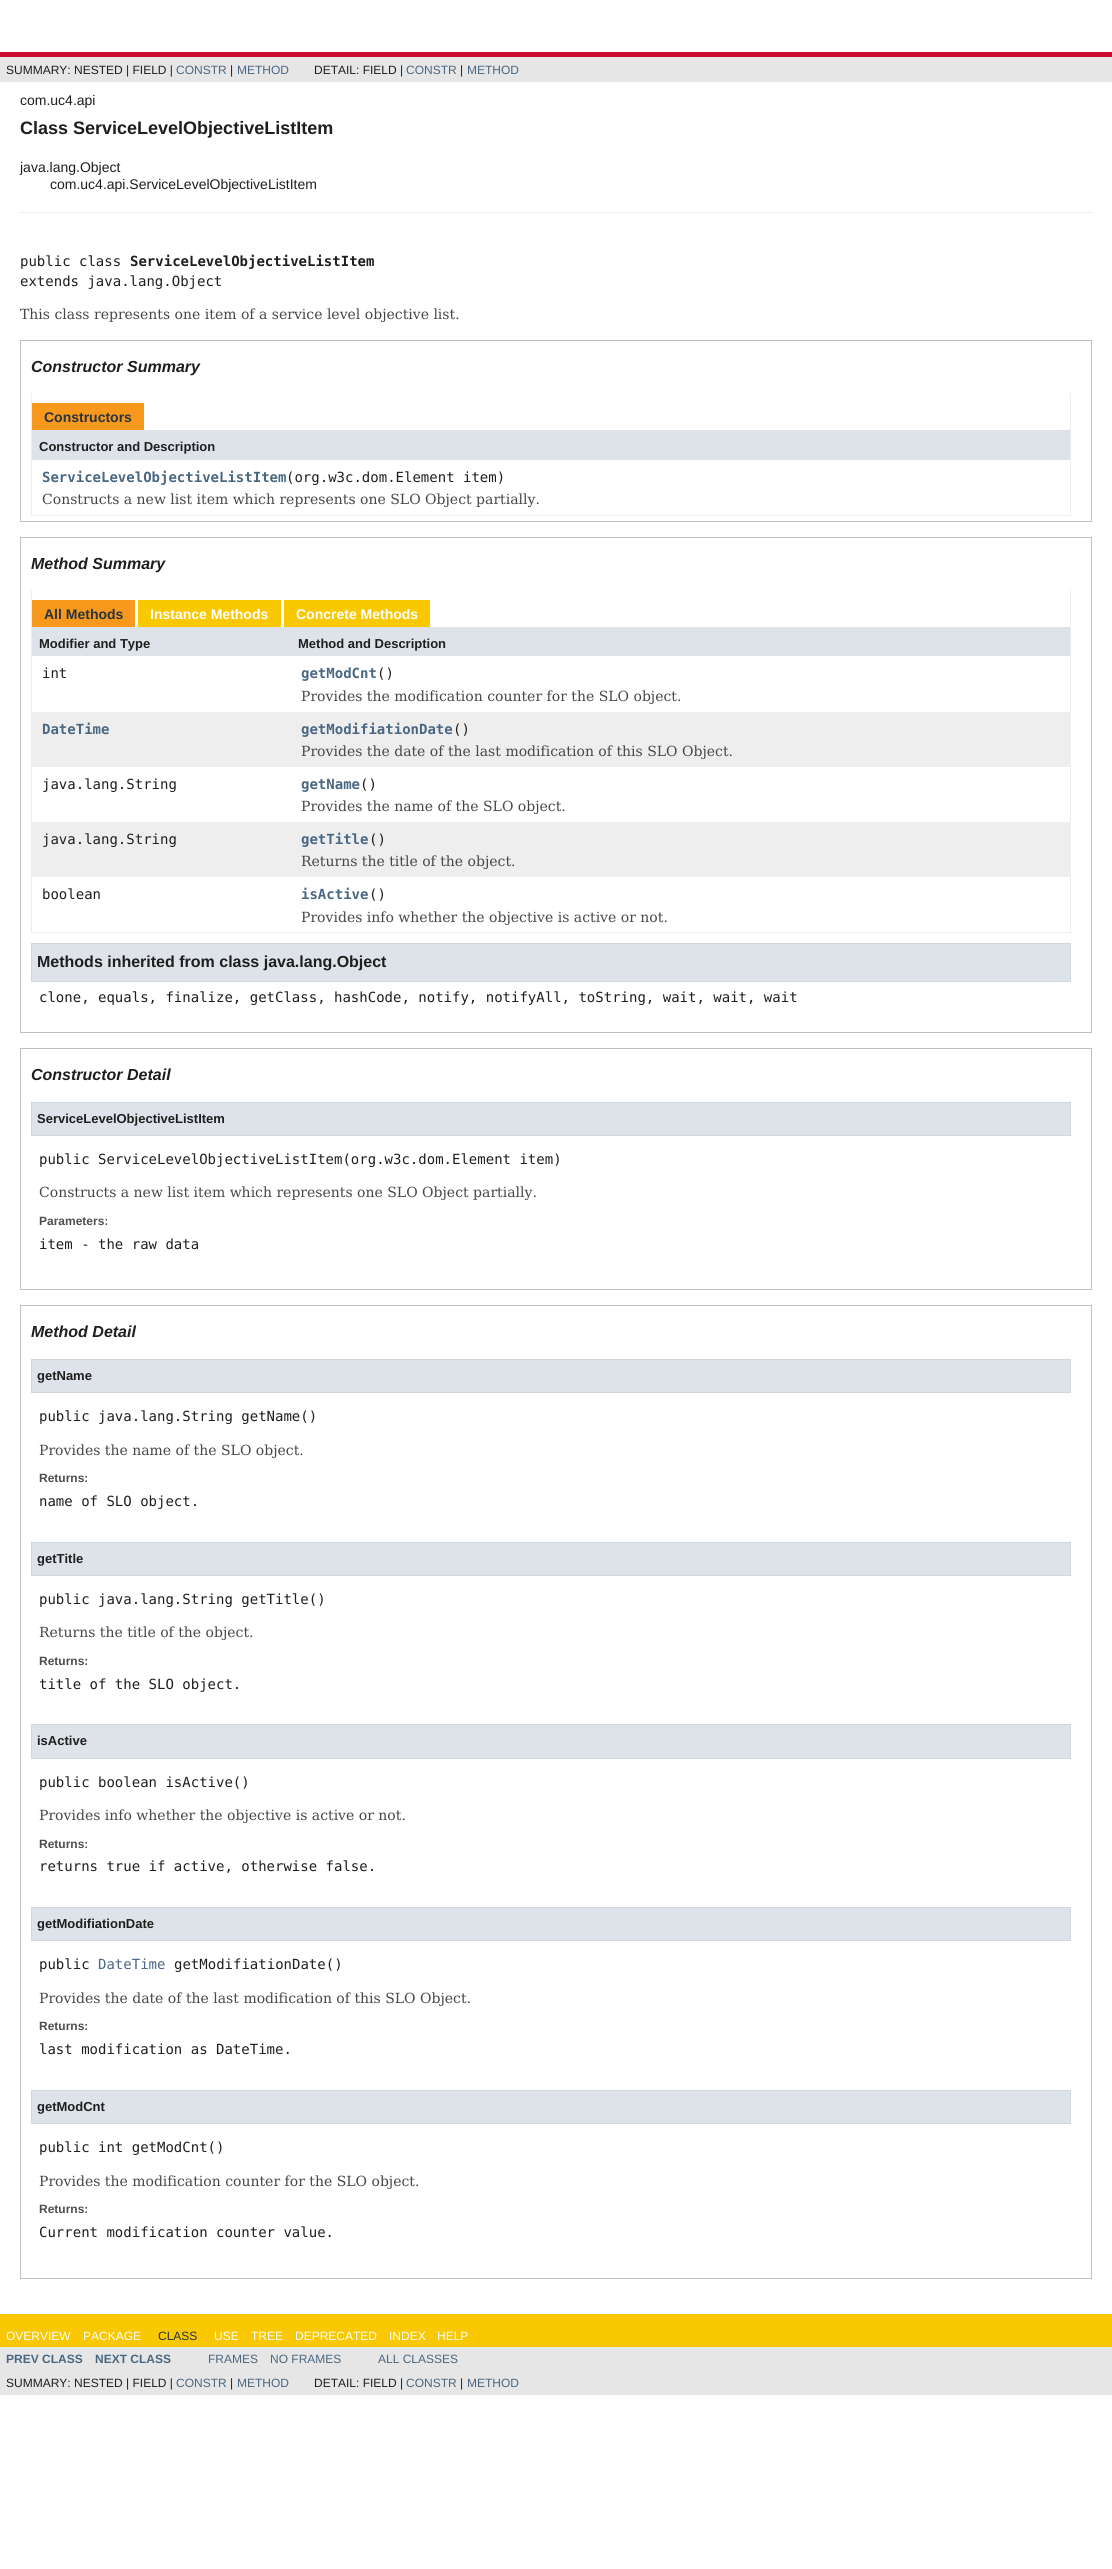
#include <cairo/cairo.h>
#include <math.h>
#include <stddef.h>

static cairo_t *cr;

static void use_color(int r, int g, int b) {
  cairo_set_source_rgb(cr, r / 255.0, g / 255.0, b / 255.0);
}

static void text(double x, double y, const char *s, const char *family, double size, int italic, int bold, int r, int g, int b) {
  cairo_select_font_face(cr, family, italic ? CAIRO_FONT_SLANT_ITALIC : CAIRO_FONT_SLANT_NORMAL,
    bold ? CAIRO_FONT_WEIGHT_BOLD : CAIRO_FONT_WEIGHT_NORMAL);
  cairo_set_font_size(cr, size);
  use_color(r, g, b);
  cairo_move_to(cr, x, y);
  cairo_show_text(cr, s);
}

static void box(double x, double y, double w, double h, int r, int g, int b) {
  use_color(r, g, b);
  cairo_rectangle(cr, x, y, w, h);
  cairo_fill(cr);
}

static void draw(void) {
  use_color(255, 255, 255);
  cairo_paint(cr);
  box(0, 52, 1112, 5, 204, 9, 47);
  box(0, 57, 1112, 25, 230, 230, 230);
  box(20, 212, 1072, 1, 238, 238, 238);
  cairo_rectangle(cr, 20.5, 340.5, 1071, 181);
  use_color(192, 192, 192);
  cairo_set_line_width(cr, 1);
  cairo_stroke(cr);
  box(1070, 393, 1, 123, 238, 238, 238);
  box(31, 515, 1040, 1, 238, 238, 238);
  box(31, 393, 1, 123, 238, 238, 238);
  box(32, 403, 112, 27, 248, 152, 29);
  box(32, 430, 1038, 30, 222, 227, 233);
  cairo_rectangle(cr, 20.5, 537.5, 1071, 495);
  use_color(192, 192, 192);
  cairo_stroke(cr);
  box(1070, 590, 1, 343, 238, 238, 238);
  box(31, 932, 1040, 1, 238, 238, 238);
  box(31, 590, 1, 343, 238, 238, 238);
  box(32, 600, 103, 27, 248, 152, 29);
  box(138, 600, 143, 27, 250, 200, 0);
  box(284, 600, 146, 27, 250, 200, 0);
  box(32, 627, 1038, 29, 222, 227, 233);
  box(32, 712, 1038, 55, 238, 238, 239);
  box(32, 822, 1038, 55, 238, 238, 239);
  use_color(222, 227, 233);
  cairo_rectangle(cr, 31.5, 943.5, 1039, 38);
  cairo_fill_preserve(cr);
  use_color(208, 217, 224);
  cairo_stroke(cr);
  cairo_rectangle(cr, 20.5, 1048.5, 1071, 241);
  use_color(192, 192, 192);
  cairo_stroke(cr);
  use_color(222, 227, 233);
  cairo_rectangle(cr, 31.5, 1102.5, 1039, 33);
  cairo_fill_preserve(cr);
  use_color(208, 217, 224);
  cairo_stroke(cr);
  cairo_rectangle(cr, 20.5, 1305.5, 1071, 973);
  use_color(192, 192, 192);
  cairo_stroke(cr);
  use_color(222, 227, 233);
  cairo_rectangle(cr, 31.5, 1359.5, 1039, 33);
  cairo_fill_preserve(cr);
  use_color(208, 217, 224);
  cairo_stroke(cr);
  use_color(222, 227, 233);
  cairo_rectangle(cr, 31.5, 1542.5, 1039, 33);
  cairo_fill_preserve(cr);
  use_color(208, 217, 224);
  cairo_stroke(cr);
  use_color(222, 227, 233);
  cairo_rectangle(cr, 31.5, 1724.5, 1039, 34);
  cairo_fill_preserve(cr);
  use_color(208, 217, 224);
  cairo_stroke(cr);
  use_color(222, 227, 233);
  cairo_rectangle(cr, 31.5, 1907.5, 1039, 33);
  cairo_fill_preserve(cr);
  use_color(208, 217, 224);
  cairo_stroke(cr);
  use_color(222, 227, 233);
  cairo_rectangle(cr, 31.5, 2090.5, 1039, 33);
  cairo_fill_preserve(cr);
  use_color(208, 217, 224);
  cairo_stroke(cr);
  box(0, 2314, 1112, 33, 250, 200, 0);
  box(0, 2347, 1112, 48, 230, 230, 230);
  text(6, 74, "SUMMARY: NESTED | FIELD |", "Liberation Sans", 12, 0, 0, 30, 30, 30);
  text(176, 74, "CONSTR", "Liberation Sans", 12, 0, 0, 74, 103, 130);
  text(230, 74, "|", "Liberation Sans", 12, 0, 0, 30, 30, 30);
  text(237, 74, "METHOD", "Liberation Sans", 12, 0, 0, 74, 103, 130);
  text(314, 74, "DETAIL: FIELD |", "Liberation Sans", 12, 0, 0, 30, 30, 30);
  text(406, 74, "CONSTR", "Liberation Sans", 12, 0, 0, 74, 103, 130);
  text(460, 74, "|", "Liberation Sans", 12, 0, 0, 30, 30, 30);
  text(467, 74, "METHOD", "Liberation Sans", 12, 0, 0, 74, 103, 130);
  text(20, 105, "com.uc4.api", "Liberation Sans", 14, 0, 0, 30, 30, 30);
  text(20, 134, "Class ServiceLevelObjectiveListItem", "Liberation Sans", 18, 0, 1, 30, 30, 30);
  text(20, 172, "java.lang.Object", "Liberation Sans", 14, 0, 0, 30, 30, 30);
  text(50, 189, "com.uc4.api.ServiceLevelObjectiveListItem", "Liberation Sans", 14, 0, 0, 30, 30, 30);
  text(20, 266, "public class", "DejaVu Sans Mono", 14, 0, 0, 30, 30, 30);
  text(130, 266, "ServiceLevelObjectiveListItem", "DejaVu Sans Mono", 14, 0, 1, 30, 30, 30);
  text(20, 286, "extends java.lang.Object", "DejaVu Sans Mono", 14, 0, 0, 30, 30, 30);
  text(20, 319, "This class represents one item of a service level objective list.", "DejaVu Serif", 14, 0, 0, 71, 71, 71);
  text(31, 372, "Constructor Summary", "Liberation Sans", 16, 1, 1, 30, 30, 30);
  text(44, 422, "Constructors", "Liberation Sans", 14, 0, 1, 37, 52, 65);
  text(39, 451, "Constructor and Description", "Liberation Sans", 13, 0, 1, 30, 30, 30);
  text(42, 482, "ServiceLevelObjectiveListItem", "DejaVu Sans Mono", 14, 0, 1, 74, 103, 130);
  text(286, 482, "(org.w3c.dom.Element item)", "DejaVu Sans Mono", 14, 0, 0, 30, 30, 30);
  text(42, 504, "Constructs a new list item which represents one SLO Object partially.", "DejaVu Serif", 14, 0, 0, 71, 71, 71);
  text(31, 569, "Method Summary", "Liberation Sans", 16, 1, 1, 30, 30, 30);
  text(44, 619, "All Methods", "Liberation Sans", 14, 0, 1, 37, 52, 65);
  text(150, 619, "Instance Methods", "Liberation Sans", 14, 0, 1, 255, 255, 255);
  text(296, 619, "Concrete Methods", "Liberation Sans", 14, 0, 1, 255, 255, 255);
  text(39, 648, "Modifier and Type", "Liberation Sans", 13, 0, 1, 30, 30, 30);
  text(298, 648, "Method and Description", "Liberation Sans", 13, 0, 1, 30, 30, 30);
  text(42, 678, "int", "DejaVu Sans Mono", 14, 0, 0, 30, 30, 30);
  text(301, 678, "getModCnt", "DejaVu Sans Mono", 14, 0, 1, 74, 103, 130);
  text(377, 678, "()", "DejaVu Sans Mono", 14, 0, 0, 30, 30, 30);
  text(301, 701, "Provides the modification counter for the SLO object.", "DejaVu Serif", 14, 0, 0, 71, 71, 71);
  text(42, 734, "DateTime", "DejaVu Sans Mono", 14, 0, 1, 74, 103, 130);
  text(301, 734, "getModifiationDate", "DejaVu Sans Mono", 14, 0, 1, 74, 103, 130);
  text(453, 734, "()", "DejaVu Sans Mono", 14, 0, 0, 30, 30, 30);
  text(301, 756, "Provides the date of the last modification of this SLO Object.", "DejaVu Serif", 14, 0, 0, 71, 71, 71);
  text(42, 789, "java.lang.String", "DejaVu Sans Mono", 14, 0, 0, 30, 30, 30);
  text(301, 789, "getName", "DejaVu Sans Mono", 14, 0, 1, 74, 103, 130);
  text(360, 789, "()", "DejaVu Sans Mono", 14, 0, 0, 30, 30, 30);
  text(301, 811, "Provides the name of the SLO object.", "DejaVu Serif", 14, 0, 0, 71, 71, 71);
  text(42, 844, "java.lang.String", "DejaVu Sans Mono", 14, 0, 0, 30, 30, 30);
  text(301, 844, "getTitle", "DejaVu Sans Mono", 14, 0, 1, 74, 103, 130);
  text(369, 844, "()", "DejaVu Sans Mono", 14, 0, 0, 30, 30, 30);
  text(301, 866, "Returns the title of the object.", "DejaVu Serif", 14, 0, 0, 71, 71, 71);
  text(42, 899, "boolean", "DejaVu Sans Mono", 14, 0, 0, 30, 30, 30);
  text(301, 899, "isActive", "DejaVu Sans Mono", 14, 0, 1, 74, 103, 130);
  text(369, 899, "()", "DejaVu Sans Mono", 14, 0, 0, 30, 30, 30);
  text(301, 922, "Provides info whether the objective is active or not.", "DejaVu Serif", 14, 0, 0, 71, 71, 71);
  text(37, 967, "Methods inherited from class java.lang.Object", "Liberation Sans", 16, 0, 1, 30, 30, 30);
  text(39, 1002, "clone, equals, finalize, getClass, hashCode, notify, notifyAll, toString, wait, wait, wait", "DejaVu Sans Mono", 14, 0, 0, 30, 30, 30);
  text(31, 1080, "Constructor Detail", "Liberation Sans", 16, 1, 1, 30, 30, 30);
  text(37, 1123, "ServiceLevelObjectiveListItem", "Liberation Sans", 13, 0, 1, 30, 30, 30);
  text(39, 1164, "public ServiceLevelObjectiveListItem(org.w3c.dom.Element item)", "DejaVu Sans Mono", 14, 0, 0, 30, 30, 30);
  text(39, 1197, "Constructs a new list item which represents one SLO Object partially.", "DejaVu Serif", 14, 0, 0, 71, 71, 71);
  text(39, 1225, "Parameters:", "Liberation Sans", 12, 0, 1, 78, 78, 78);
  text(39, 1249, "item - the raw data", "DejaVu Sans Mono", 14, 0, 0, 30, 30, 30);
  text(31, 1337, "Method Detail", "Liberation Sans", 16, 1, 1, 30, 30, 30);
  text(37, 1380, "getName", "Liberation Sans", 13, 0, 1, 30, 30, 30);
  text(39, 1421, "public java.lang.String getName()", "DejaVu Sans Mono", 14, 0, 0, 30, 30, 30);
  text(39, 1455, "Provides the name of the SLO object.", "DejaVu Serif", 14, 0, 0, 71, 71, 71);
  text(39, 1482, "Returns:", "Liberation Sans", 12, 0, 1, 78, 78, 78);
  text(39, 1506, "name of SLO object.", "DejaVu Sans Mono", 14, 0, 0, 30, 30, 30);
  text(37, 1563, "getTitle", "Liberation Sans", 13, 0, 1, 30, 30, 30);
  text(39, 1604, "public java.lang.String getTitle()", "DejaVu Sans Mono", 14, 0, 0, 30, 30, 30);
  text(39, 1637, "Returns the title of the object.", "DejaVu Serif", 14, 0, 0, 71, 71, 71);
  text(39, 1665, "Returns:", "Liberation Sans", 12, 0, 1, 78, 78, 78);
  text(39, 1689, "title of the SLO object.", "DejaVu Sans Mono", 14, 0, 0, 30, 30, 30);
  text(37, 1745, "isActive", "Liberation Sans", 13, 0, 1, 30, 30, 30);
  text(39, 1787, "public boolean isActive()", "DejaVu Sans Mono", 14, 0, 0, 30, 30, 30);
  text(39, 1820, "Provides info whether the objective is active or not.", "DejaVu Serif", 14, 0, 0, 71, 71, 71);
  text(39, 1848, "Returns:", "Liberation Sans", 12, 0, 1, 78, 78, 78);
  text(39, 1871, "returns true if active, otherwise false.", "DejaVu Sans Mono", 14, 0, 0, 30, 30, 30);
  text(37, 1928, "getModifiationDate", "Liberation Sans", 13, 0, 1, 30, 30, 30);
  text(39, 1969, "public", "DejaVu Sans Mono", 14, 0, 0, 30, 30, 30);
  text(98, 1969, "DateTime", "DejaVu Sans Mono", 14, 0, 0, 74, 103, 130);
  text(174, 1969, "getModifiationDate()", "DejaVu Sans Mono", 14, 0, 0, 30, 30, 30);
  text(39, 2003, "Provides the date of the last modification of this SLO Object.", "DejaVu Serif", 14, 0, 0, 71, 71, 71);
  text(39, 2030, "Returns:", "Liberation Sans", 12, 0, 1, 78, 78, 78);
  text(39, 2054, "last modification as DateTime.", "DejaVu Sans Mono", 14, 0, 0, 30, 30, 30);
  text(37, 2111, "getModCnt", "Liberation Sans", 13, 0, 1, 30, 30, 30);
  text(39, 2152, "public int getModCnt()", "DejaVu Sans Mono", 14, 0, 0, 30, 30, 30);
  text(39, 2186, "Provides the modification counter for the SLO object.", "DejaVu Serif", 14, 0, 0, 71, 71, 71);
  text(39, 2213, "Returns:", "Liberation Sans", 12, 0, 1, 78, 78, 78);
  text(39, 2237, "Current modification counter value.", "DejaVu Sans Mono", 14, 0, 0, 30, 30, 30);
  text(6, 2340, "OVERVIEW", "Liberation Sans", 12, 0, 0, 255, 255, 255);
  text(83, 2340, "PACKAGE", "Liberation Sans", 12, 0, 0, 255, 255, 255);
  text(158, 2340, "CLASS", "Liberation Sans", 12, 0, 0, 37, 52, 65);
  text(214, 2340, "USE", "Liberation Sans", 12, 0, 0, 255, 255, 255);
  text(251, 2340, "TREE", "Liberation Sans", 12, 0, 0, 255, 255, 255);
  text(295, 2340, "DEPRECATED", "Liberation Sans", 12, 0, 0, 255, 255, 255);
  text(389, 2340, "INDEX", "Liberation Sans", 12, 0, 0, 255, 255, 255);
  text(437, 2340, "HELP", "Liberation Sans", 12, 0, 0, 255, 255, 255);
  text(6, 2363, "PREV CLASS", "Liberation Sans", 12, 0, 1, 74, 103, 130);
  text(95, 2363, "NEXT CLASS", "Liberation Sans", 12, 0, 1, 74, 103, 130);
  text(208, 2363, "FRAMES", "Liberation Sans", 12, 0, 0, 74, 103, 130);
  text(270, 2363, "NO FRAMES", "Liberation Sans", 12, 0, 0, 74, 103, 130);
  text(378, 2363, "ALL CLASSES", "Liberation Sans", 12, 0, 0, 74, 103, 130);
  text(6, 2387, "SUMMARY: NESTED | FIELD |", "Liberation Sans", 12, 0, 0, 30, 30, 30);
  text(176, 2387, "CONSTR", "Liberation Sans", 12, 0, 0, 74, 103, 130);
  text(230, 2387, "|", "Liberation Sans", 12, 0, 0, 30, 30, 30);
  text(237, 2387, "METHOD", "Liberation Sans", 12, 0, 0, 74, 103, 130);
  text(314, 2387, "DETAIL: FIELD |", "Liberation Sans", 12, 0, 0, 30, 30, 30);
  text(406, 2387, "CONSTR", "Liberation Sans", 12, 0, 0, 74, 103, 130);
  text(460, 2387, "|", "Liberation Sans", 12, 0, 0, 30, 30, 30);
  text(467, 2387, "METHOD", "Liberation Sans", 12, 0, 0, 74, 103, 130);
}

int main(void) {
  cairo_surface_t *surface = cairo_image_surface_create(CAIRO_FORMAT_RGB24, 1112, 2569);
  cr = cairo_create(surface);
  cairo_font_options_t *options = cairo_font_options_create();
  cairo_font_options_set_hint_metrics(options, CAIRO_HINT_METRICS_OFF);
  cairo_font_options_set_hint_style(options, CAIRO_HINT_STYLE_NONE);
  cairo_set_font_options(cr, options);
  cairo_set_miter_limit(cr, 4);
  draw();
  cairo_surface_write_to_png(surface, "out.png");
  cairo_font_options_destroy(options);
  cairo_destroy(cr);
  cairo_surface_destroy(surface);
  return 0;
}
